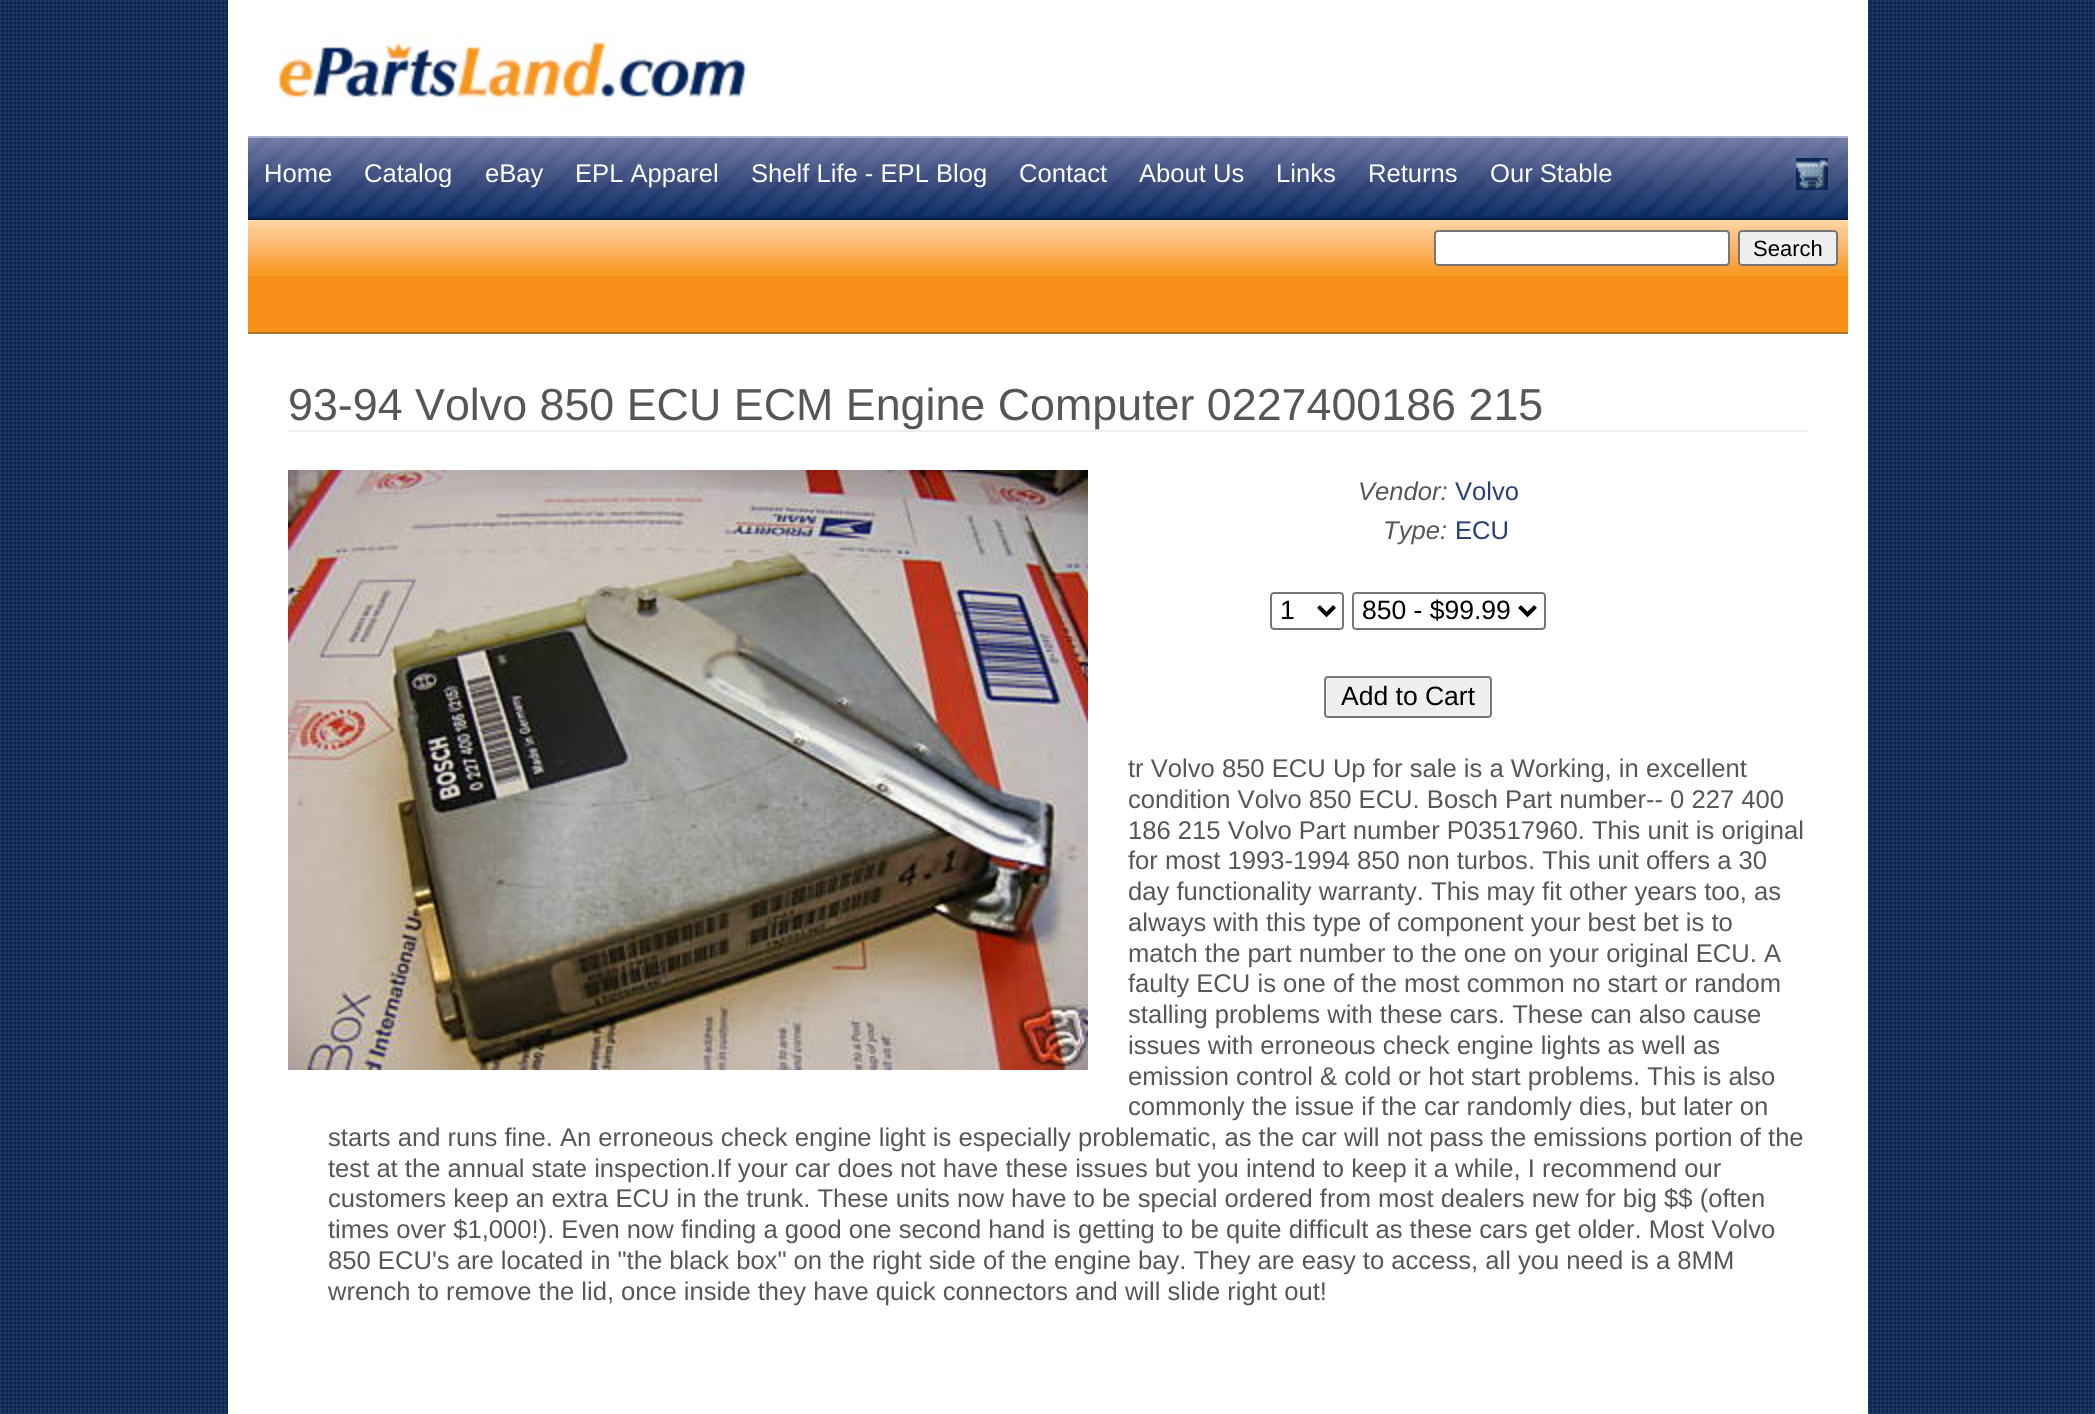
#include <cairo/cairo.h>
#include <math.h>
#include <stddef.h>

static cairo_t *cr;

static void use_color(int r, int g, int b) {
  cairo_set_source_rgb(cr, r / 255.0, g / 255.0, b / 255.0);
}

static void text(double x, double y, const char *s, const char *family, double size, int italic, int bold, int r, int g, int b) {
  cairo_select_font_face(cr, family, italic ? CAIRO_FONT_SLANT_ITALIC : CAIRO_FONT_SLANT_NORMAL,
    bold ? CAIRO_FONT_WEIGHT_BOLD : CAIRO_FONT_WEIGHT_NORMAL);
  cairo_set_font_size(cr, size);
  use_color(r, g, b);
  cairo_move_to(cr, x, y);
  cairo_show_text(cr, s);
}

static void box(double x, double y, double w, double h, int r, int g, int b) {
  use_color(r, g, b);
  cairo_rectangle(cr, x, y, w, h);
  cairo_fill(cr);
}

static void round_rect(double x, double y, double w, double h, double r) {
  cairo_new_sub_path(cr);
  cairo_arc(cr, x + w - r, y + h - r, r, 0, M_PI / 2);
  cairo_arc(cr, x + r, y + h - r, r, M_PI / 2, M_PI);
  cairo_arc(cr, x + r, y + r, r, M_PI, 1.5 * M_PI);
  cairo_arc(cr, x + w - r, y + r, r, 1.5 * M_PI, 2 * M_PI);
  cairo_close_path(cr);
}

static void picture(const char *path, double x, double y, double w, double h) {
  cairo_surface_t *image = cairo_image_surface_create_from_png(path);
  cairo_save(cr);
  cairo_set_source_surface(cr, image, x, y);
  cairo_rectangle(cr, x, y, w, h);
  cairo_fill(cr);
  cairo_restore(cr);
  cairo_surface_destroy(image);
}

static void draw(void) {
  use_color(255, 255, 255);
  cairo_paint(cr);
  picture("img_01.png", 0, 0, 2095, 1414);
  box(228, 0, 1640, 1414, 255, 255, 255);
  picture("img_02.png", 277, 32, 474, 80);
  box(248, 216, 1600, 2, 9, 42, 96);
  picture("img_03.png", 248, 138, 1600, 78);
  box(248, 136, 1600, 2, 170, 177, 203);
  box(248, 218, 1600, 2, 6, 26, 59);
  picture("img_04.png", 1796, 158, 32, 32);
  box(248, 276, 1600, 56, 247, 143, 25);
  picture("img_05.png", 248, 220, 1600, 56);
  box(248, 332, 1600, 2, 173, 114, 39);
  use_color(255, 255, 255);
  round_rect(1435, 231, 294, 34, 3);
  cairo_fill_preserve(cr);
  use_color(118, 118, 118);
  cairo_stroke(cr);
  use_color(239, 239, 239);
  round_rect(1739, 231, 98, 34, 3);
  cairo_fill_preserve(cr);
  use_color(118, 118, 118);
  cairo_stroke(cr);
  box(288, 430, 1520, 2, 238, 238, 238);
  picture("img_06.png", 288, 470, 800, 600);
  round_rect(1271, 593, 72, 36, 3);
  use_color(118, 118, 118);
  cairo_stroke(cr);
  cairo_new_path(cr);
  cairo_move_to(cr, 1318.5, 606.5);
  cairo_line_to(cr, 1326.5, 614.5);
  cairo_line_to(cr, 1334.5, 606.5);
  use_color(0, 0, 0);
  cairo_set_line_width(cr, 4);
  cairo_stroke(cr);
  round_rect(1353, 593, 192, 36, 3);
  use_color(118, 118, 118);
  cairo_set_line_width(cr, 2);
  cairo_stroke(cr);
  cairo_new_path(cr);
  cairo_move_to(cr, 1519.5, 606.5);
  cairo_line_to(cr, 1527.5, 614.5);
  cairo_line_to(cr, 1535.5, 606.5);
  use_color(0, 0, 0);
  cairo_set_line_width(cr, 4);
  cairo_stroke(cr);
  use_color(239, 239, 239);
  round_rect(1325, 677, 166, 40, 3);
  cairo_fill_preserve(cr);
  use_color(118, 118, 118);
  cairo_set_line_width(cr, 2);
  cairo_stroke(cr);
  text(264, 182, "Home", "Liberation Sans", 25.6, 0, 0, 255, 255, 255);
  text(364, 182, "Catalog", "Liberation Sans", 25.6, 0, 0, 255, 255, 255);
  text(485, 182, "eBay", "Liberation Sans", 25.6, 0, 0, 255, 255, 255);
  text(575, 182, "EPL Apparel", "Liberation Sans", 25.6, 0, 0, 255, 255, 255);
  text(751, 182, "Shelf Life - EPL Blog", "Liberation Sans", 25.6, 0, 0, 255, 255, 255);
  text(1019, 182, "Contact", "Liberation Sans", 25.6, 0, 0, 255, 255, 255);
  text(1139, 182, "About Us", "Liberation Sans", 25.6, 0, 0, 255, 255, 255);
  text(1276, 182, "Links", "Liberation Sans", 25.6, 0, 0, 255, 255, 255);
  text(1368, 182, "Returns", "Liberation Sans", 25.6, 0, 0, 255, 255, 255);
  text(1490, 182, "Our Stable", "Liberation Sans", 25.6, 0, 0, 255, 255, 255);
  text(1753, 256, "Search", "Liberation Sans", 22, 0, 0, 0, 0, 0);
  text(288, 420, "93-94 Volvo 850 ECU ECM Engine Computer 0227400186 215", "Liberation Sans", 44.8, 0, 0, 86, 86, 82);
  text(1358, 500, "Vendor:", "Liberation Sans", 25.6, 1, 0, 86, 86, 82);
  text(1455, 500, "Volvo", "Liberation Sans", 25.6, 0, 0, 40, 63, 115);
  text(1383, 539, "Type:", "Liberation Sans", 25.6, 1, 0, 86, 86, 82);
  text(1455, 539, "ECU", "Liberation Sans", 25.6, 0, 0, 40, 63, 115);
  text(1280, 619, "1", "Liberation Sans", 26.5, 0, 0, 0, 0, 0);
  text(1362, 619, "850 - $99.99", "Liberation Sans", 26.5, 0, 0, 0, 0, 0);
  text(1341, 705, "Add to Cart", "Liberation Sans", 26.5, 0, 0, 0, 0, 0);
  text(1128, 777, "tr Volvo 850 ECU Up for sale is a Working, in excellent", "Liberation Sans", 25.6, 0, 0, 86, 86, 82);
  text(1128, 808, "condition Volvo 850 ECU. Bosch Part number-- 0 227 400", "Liberation Sans", 25.6, 0, 0, 86, 86, 82);
  text(1128, 839, "186 215 Volvo Part number P03517960. This unit is original", "Liberation Sans", 25.6, 0, 0, 86, 86, 82);
  text(1128, 869, "for most 1993-1994 850 non turbos. This unit offers a 30", "Liberation Sans", 25.6, 0, 0, 86, 86, 82);
  text(1128, 900, "day functionality warranty. This may fit other years too, as", "Liberation Sans", 25.6, 0, 0, 86, 86, 82);
  text(1128, 931, "always with this type of component your best bet is to", "Liberation Sans", 25.6, 0, 0, 86, 86, 82);
  text(1128, 962, "match the part number to the one on your original ECU. A", "Liberation Sans", 25.6, 0, 0, 86, 86, 82);
  text(1128, 992, "faulty ECU is one of the most common no start or random", "Liberation Sans", 25.6, 0, 0, 86, 86, 82);
  text(1128, 1023, "stalling problems with these cars. These can also cause", "Liberation Sans", 25.6, 0, 0, 86, 86, 82);
  text(1128, 1054, "issues with erroneous check engine lights as well as", "Liberation Sans", 25.6, 0, 0, 86, 86, 82);
  text(1128, 1085, "emission control & cold or hot start problems. This is also", "Liberation Sans", 25.6, 0, 0, 86, 86, 82);
  text(1128, 1115, "commonly the issue if the car randomly dies, but later on", "Liberation Sans", 25.6, 0, 0, 86, 86, 82);
  text(328, 1146, "starts and runs fine. An erroneous check engine light is especially problematic, as the car will not pass the emissions portion of the", "Liberation Sans", 25.6, 0, 0, 86, 86, 82);
  text(328, 1177, "test at the annual state inspection.If your car does not have these issues but you intend to keep it a while, I recommend our", "Liberation Sans", 25.6, 0, 0, 86, 86, 82);
  text(328, 1207, "customers keep an extra ECU in the trunk. These units now have to be special ordered from most dealers new for big $$ (often", "Liberation Sans", 25.6, 0, 0, 86, 86, 82);
  text(328, 1238, "times over $1,000!). Even now finding a good one second hand is getting to be quite difficult as these cars get older. Most Volvo", "Liberation Sans", 25.6, 0, 0, 86, 86, 82);
  text(328, 1269, "850 ECU's are located in \"the black box\" on the right side of the engine bay. They are easy to access, all you need is a 8MM", "Liberation Sans", 25.6, 0, 0, 86, 86, 82);
  text(328, 1300, "wrench to remove the lid, once inside they have quick connectors and will slide right out!", "Liberation Sans", 25.6, 0, 0, 86, 86, 82);
}

int main(void) {
  cairo_surface_t *surface = cairo_image_surface_create(CAIRO_FORMAT_RGB24, 2095, 1414);
  cr = cairo_create(surface);
  cairo_font_options_t *options = cairo_font_options_create();
  cairo_font_options_set_hint_metrics(options, CAIRO_HINT_METRICS_OFF);
  cairo_font_options_set_hint_style(options, CAIRO_HINT_STYLE_NONE);
  cairo_set_font_options(cr, options);
  cairo_set_miter_limit(cr, 4);
  draw();
  cairo_surface_write_to_png(surface, "out.png");
  cairo_font_options_destroy(options);
  cairo_destroy(cr);
  cairo_surface_destroy(surface);
  return 0;
}
